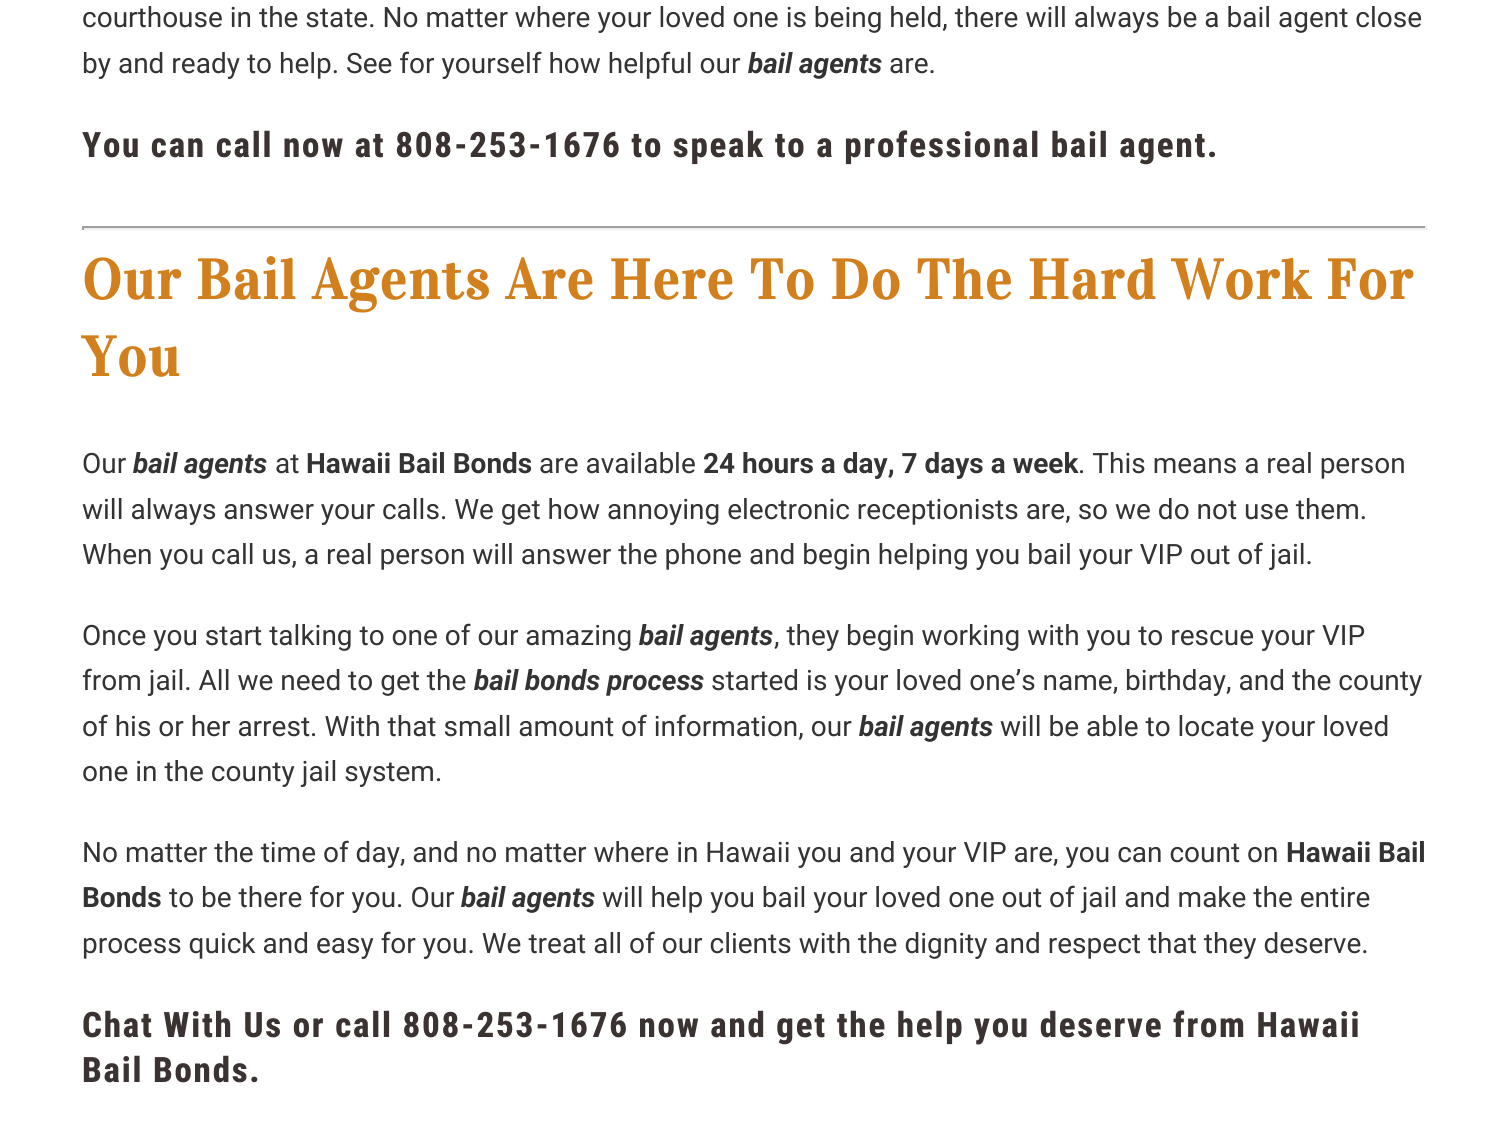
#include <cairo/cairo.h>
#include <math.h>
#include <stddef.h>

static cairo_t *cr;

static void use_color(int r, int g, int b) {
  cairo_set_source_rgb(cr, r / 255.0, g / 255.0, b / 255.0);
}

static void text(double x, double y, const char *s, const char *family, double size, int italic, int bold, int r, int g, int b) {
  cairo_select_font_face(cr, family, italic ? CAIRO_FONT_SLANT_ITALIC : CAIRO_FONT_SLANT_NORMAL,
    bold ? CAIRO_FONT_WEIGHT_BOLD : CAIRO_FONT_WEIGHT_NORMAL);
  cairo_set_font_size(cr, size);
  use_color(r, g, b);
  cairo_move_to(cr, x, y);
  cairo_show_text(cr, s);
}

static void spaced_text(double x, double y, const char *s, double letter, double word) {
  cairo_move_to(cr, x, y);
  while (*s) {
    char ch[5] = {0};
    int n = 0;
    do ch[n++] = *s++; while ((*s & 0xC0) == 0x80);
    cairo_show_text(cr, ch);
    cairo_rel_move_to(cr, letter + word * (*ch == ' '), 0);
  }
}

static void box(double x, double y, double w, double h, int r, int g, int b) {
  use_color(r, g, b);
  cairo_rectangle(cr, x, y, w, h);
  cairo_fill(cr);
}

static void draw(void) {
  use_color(255, 255, 255);
  cairo_paint(cr);
  box(82, 226, 1344, 2, 159, 159, 159);
  box(1425, 226, 2, 4, 238, 238, 238);
  box(82, 228, 1344, 2, 238, 238, 238);
  box(82, 226, 2, 4, 159, 159, 159);
  text(82, 27, "courthouse in the state. No matter where your loved one is being held, there will always be a bail agent close", "Roboto", 28, 0, 0, 51, 51, 51);
  text(82, 73, "by and ready to help. See for yourself how helpful our", "Roboto", 28, 0, 0, 51, 51, 51);
  text(748, 73, "bail agents", "Roboto", 28, 1, 1, 51, 51, 51);
  text(889, 73, "are.", "Roboto", 28, 0, 0, 51, 51, 51);
  cairo_select_font_face(cr, "Roboto Condensed ExtraBold", CAIRO_FONT_SLANT_NORMAL, CAIRO_FONT_WEIGHT_NORMAL);
  cairo_set_font_size(cr, 35);
  use_color(59, 51, 49);
  spaced_text(82, 157, "You can call now at 808-253-1676 to speak to a professional bail agent.", 1.75, 0);
  cairo_select_font_face(cr, "Vidaloka", CAIRO_FONT_SLANT_NORMAL, CAIRO_FONT_WEIGHT_BOLD);
  cairo_set_font_size(cr, 56);
  use_color(210, 127, 29);
  spaced_text(82, 299, "Our Bail Agents Are Here To Do The Hard Work For", 1.75, 0);
  spaced_text(82, 376, "You", 1.75, 0);
  text(82, 473, "Our", "Roboto", 28, 0, 0, 51, 51, 51);
  text(133, 473, "bail agents", "Roboto", 28, 1, 1, 51, 51, 51);
  text(275, 473, "at", "Roboto", 28, 0, 0, 51, 51, 51);
  text(306, 473, "Hawaii Bail Bonds", "Roboto", 28, 0, 1, 51, 51, 51);
  text(539, 473, "are available", "Roboto", 28, 0, 0, 51, 51, 51);
  text(703, 473, "24 hours a day, 7 days a week", "Roboto", 28, 0, 1, 51, 51, 51);
  text(1078, 473, ". This means a real person", "Roboto", 28, 0, 0, 51, 51, 51);
  text(82, 519, "will always answer your calls. We get how annoying electronic receptionists are, so we do not use them.", "Roboto", 28, 0, 0, 51, 51, 51);
  text(82, 564, "When you call us, a real person will answer the phone and begin helping you bail your VIP out of jail.", "Roboto", 28, 0, 0, 51, 51, 51);
  text(82, 645, "Once you start talking to one of our amazing", "Roboto", 28, 0, 0, 51, 51, 51);
  text(639, 645, "bail agents", "Roboto", 28, 1, 1, 51, 51, 51);
  text(774, 645, ", they begin working with you to rescue your VIP", "Roboto", 28, 0, 0, 51, 51, 51);
  text(82, 690, "from jail. All we need to get the", "Roboto", 28, 0, 0, 51, 51, 51);
  text(474, 690, "bail bonds process", "Roboto", 28, 1, 1, 51, 51, 51);
  text(711, 690, "started is your loved one’s name, birthday, and the county", "Roboto", 28, 0, 0, 51, 51, 51);
  text(82, 736, "of his or her arrest. With that small amount of information, our", "Roboto", 28, 0, 0, 51, 51, 51);
  text(859, 736, "bail agents", "Roboto", 28, 1, 1, 51, 51, 51);
  text(1000, 736, "will be able to locate your loved", "Roboto", 28, 0, 0, 51, 51, 51);
  text(82, 781, "one in the county jail system.", "Roboto", 28, 0, 0, 51, 51, 51);
  text(82, 862, "No matter the time of day, and no matter where in Hawaii you and your VIP are, you can count on", "Roboto", 28, 0, 0, 51, 51, 51);
  text(1286, 862, "Hawaii Bail", "Roboto", 28, 0, 1, 51, 51, 51);
  text(82, 907, "Bonds", "Roboto", 28, 0, 1, 51, 51, 51);
  text(169, 907, "to be there for you. Our", "Roboto", 28, 0, 0, 51, 51, 51);
  text(461, 907, "bail agents", "Roboto", 28, 1, 1, 51, 51, 51);
  text(602, 907, "will help you bail your loved one out of jail and make the entire", "Roboto", 28, 0, 0, 51, 51, 51);
  text(82, 953, "process quick and easy for you. We treat all of our clients with the dignity and respect that they deserve.", "Roboto", 28, 0, 0, 51, 51, 51);
  cairo_select_font_face(cr, "Roboto Condensed ExtraBold", CAIRO_FONT_SLANT_NORMAL, CAIRO_FONT_WEIGHT_NORMAL);
  cairo_set_font_size(cr, 35);
  use_color(59, 51, 49);
  spaced_text(82, 1037, "Chat With Us or call 808-253-1676 now and get the help you deserve from Hawaii", 1.75, 0);
  spaced_text(82, 1082, "Bail Bonds.", 1.75, 0);
}

int main(void) {
  cairo_surface_t *surface = cairo_image_surface_create(CAIRO_FORMAT_RGB24, 1508, 1137);
  cr = cairo_create(surface);
  cairo_font_options_t *options = cairo_font_options_create();
  cairo_font_options_set_hint_metrics(options, CAIRO_HINT_METRICS_OFF);
  cairo_font_options_set_hint_style(options, CAIRO_HINT_STYLE_NONE);
  cairo_set_font_options(cr, options);
  cairo_set_miter_limit(cr, 4);
  draw();
  cairo_surface_write_to_png(surface, "out.png");
  cairo_font_options_destroy(options);
  cairo_destroy(cr);
  cairo_surface_destroy(surface);
  return 0;
}
